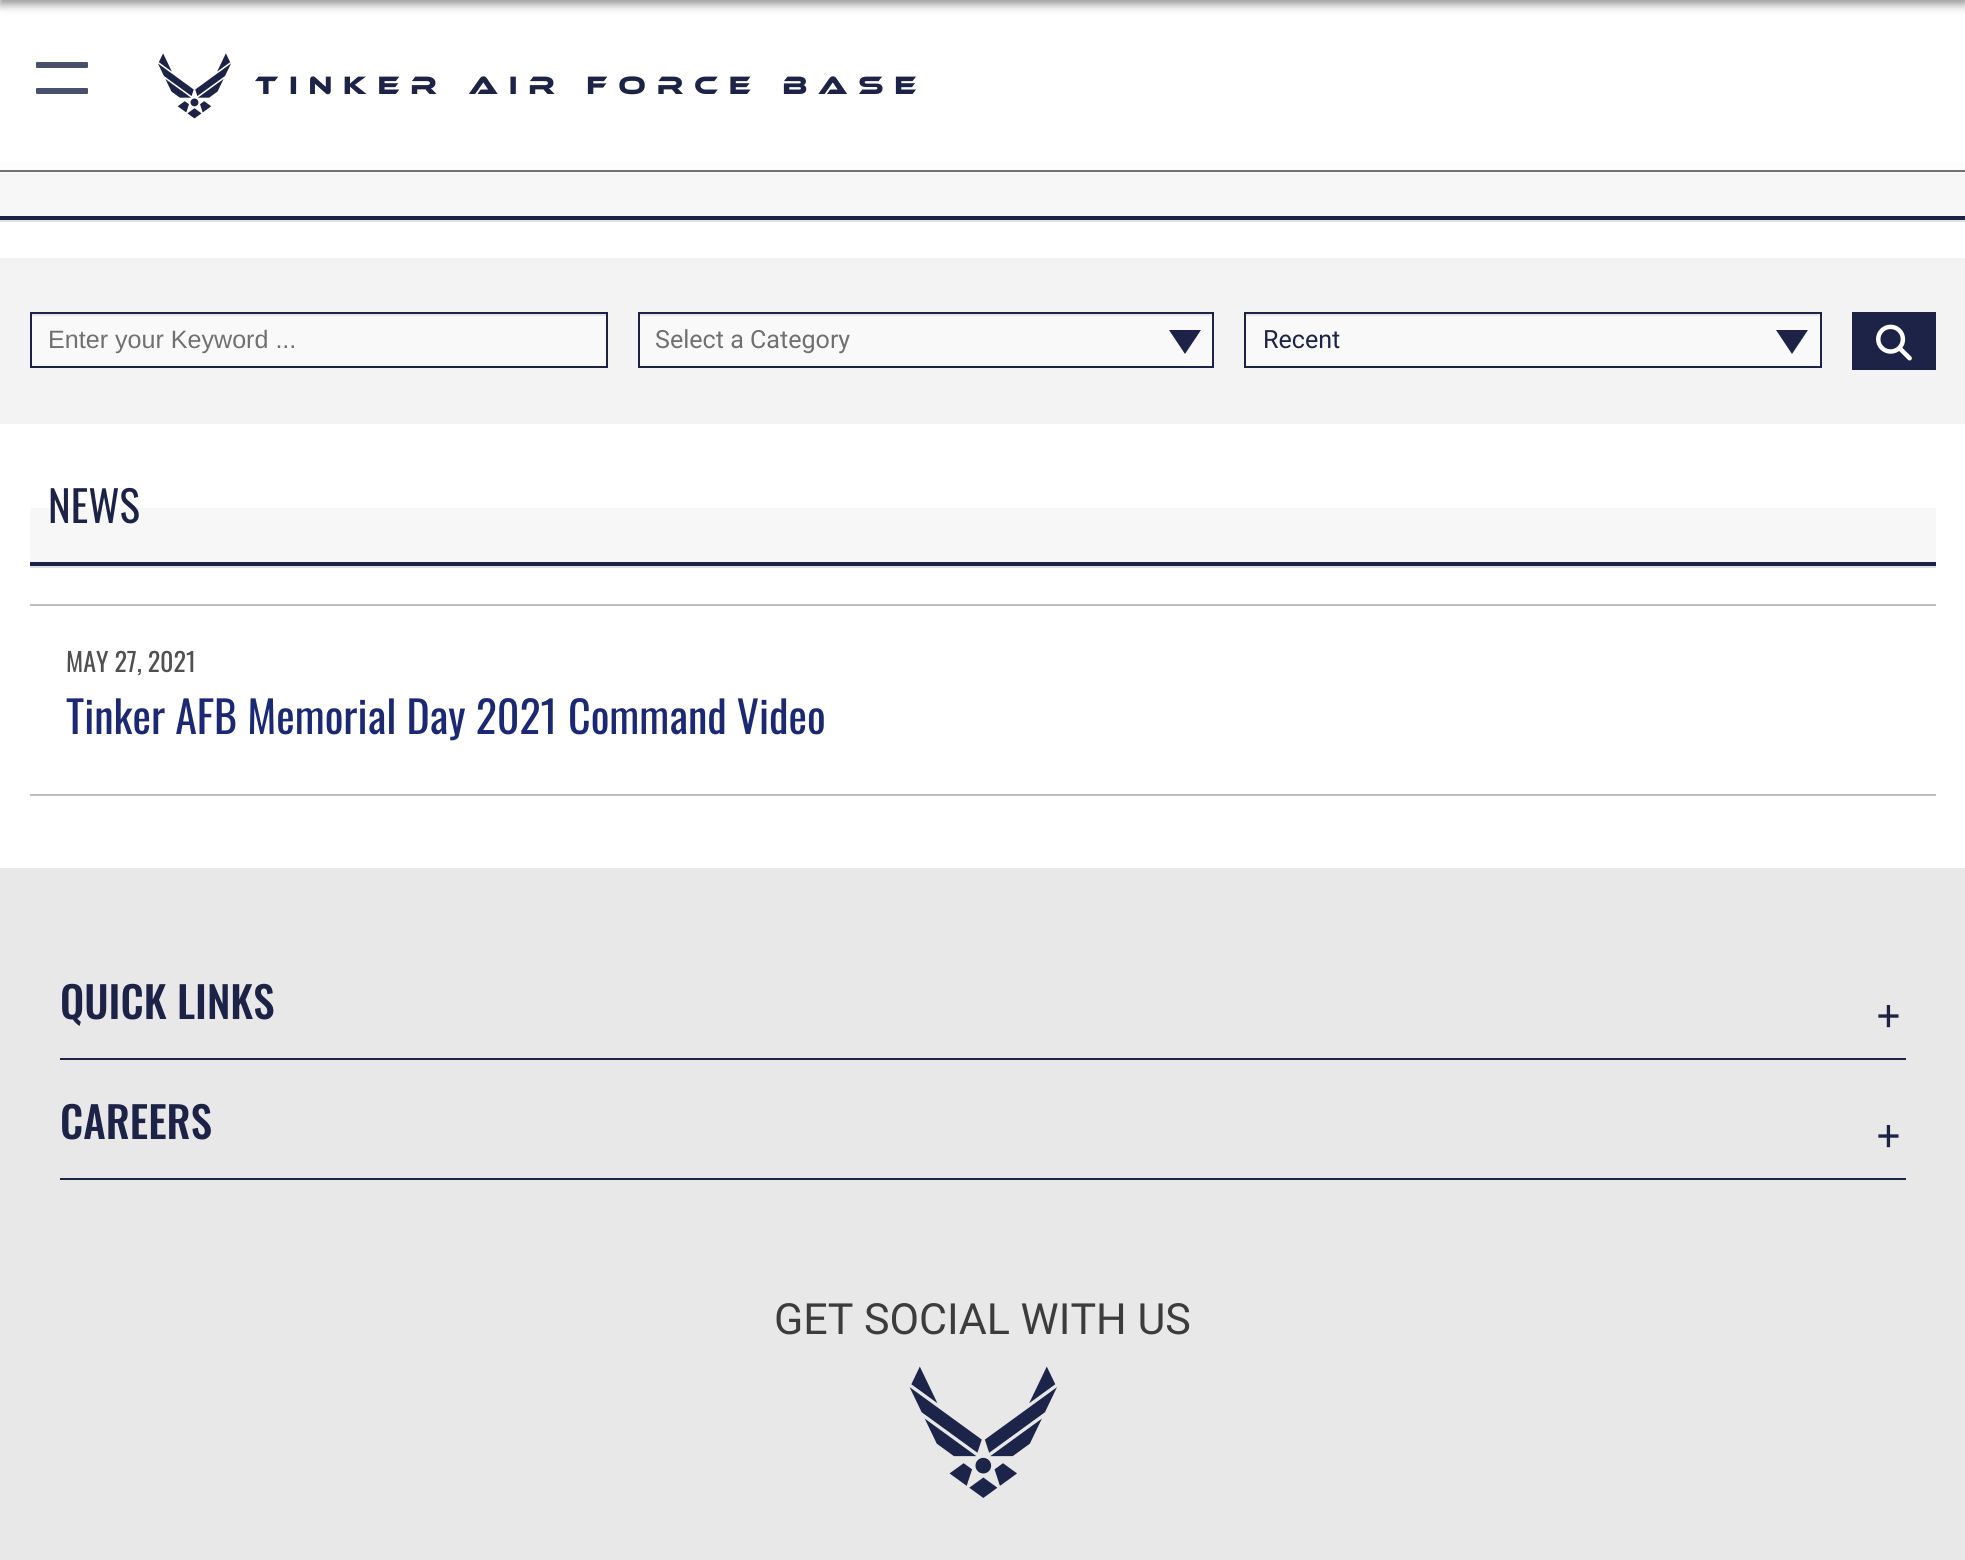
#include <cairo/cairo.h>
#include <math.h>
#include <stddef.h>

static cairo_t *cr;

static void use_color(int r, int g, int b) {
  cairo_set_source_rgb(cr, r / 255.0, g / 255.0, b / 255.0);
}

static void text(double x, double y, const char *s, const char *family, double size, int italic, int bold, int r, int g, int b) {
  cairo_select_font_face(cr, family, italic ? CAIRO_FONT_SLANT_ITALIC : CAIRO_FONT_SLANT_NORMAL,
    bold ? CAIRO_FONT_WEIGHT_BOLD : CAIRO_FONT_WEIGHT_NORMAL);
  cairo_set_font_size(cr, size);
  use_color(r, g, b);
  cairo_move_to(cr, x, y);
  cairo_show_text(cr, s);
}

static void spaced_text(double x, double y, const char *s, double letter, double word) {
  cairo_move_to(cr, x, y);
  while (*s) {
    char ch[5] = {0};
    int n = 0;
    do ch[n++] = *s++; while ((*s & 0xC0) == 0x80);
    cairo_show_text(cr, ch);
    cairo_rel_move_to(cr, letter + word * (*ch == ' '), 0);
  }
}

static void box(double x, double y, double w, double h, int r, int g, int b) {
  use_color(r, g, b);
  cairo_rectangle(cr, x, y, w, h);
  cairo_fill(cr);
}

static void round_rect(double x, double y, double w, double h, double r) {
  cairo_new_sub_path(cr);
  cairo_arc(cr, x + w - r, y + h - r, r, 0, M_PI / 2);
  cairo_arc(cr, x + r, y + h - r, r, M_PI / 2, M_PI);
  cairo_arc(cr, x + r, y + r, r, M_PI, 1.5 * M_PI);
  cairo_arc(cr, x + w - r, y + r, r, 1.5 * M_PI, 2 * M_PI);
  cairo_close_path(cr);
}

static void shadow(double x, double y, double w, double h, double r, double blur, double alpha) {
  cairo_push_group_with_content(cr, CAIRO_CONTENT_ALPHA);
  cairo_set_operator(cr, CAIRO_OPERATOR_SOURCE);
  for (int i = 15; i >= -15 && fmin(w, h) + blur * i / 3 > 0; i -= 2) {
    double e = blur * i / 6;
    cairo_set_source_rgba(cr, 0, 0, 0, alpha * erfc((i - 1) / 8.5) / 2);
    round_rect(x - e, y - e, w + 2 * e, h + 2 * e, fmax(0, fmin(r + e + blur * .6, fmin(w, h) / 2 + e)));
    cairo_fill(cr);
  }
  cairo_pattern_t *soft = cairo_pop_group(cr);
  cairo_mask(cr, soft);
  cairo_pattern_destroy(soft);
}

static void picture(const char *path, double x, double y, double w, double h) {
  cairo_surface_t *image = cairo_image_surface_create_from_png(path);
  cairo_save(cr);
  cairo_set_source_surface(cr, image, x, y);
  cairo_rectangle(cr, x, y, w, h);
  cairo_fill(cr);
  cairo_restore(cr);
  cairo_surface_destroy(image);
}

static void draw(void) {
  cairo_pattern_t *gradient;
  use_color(255, 255, 255);
  cairo_paint(cr);
  use_color(26, 26, 26);
  shadow(0, -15, 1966, 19, 0, 5, 0.5);
  gradient = cairo_pattern_create_linear(983, 132, 983, 220);
  cairo_pattern_add_color_stop_rgba(gradient, 0, 1, 1, 1, 1);
  cairo_pattern_add_color_stop_rgba(gradient, 0.34, 1, 1, 1, 1);
  cairo_pattern_add_color_stop_rgba(gradient, 0.34, 0.969, 0.969, 0.969, 1);
  cairo_pattern_add_color_stop_rgba(gradient, 1, 0.969, 0.969, 0.969, 1);
  cairo_set_source(cr, gradient);
  cairo_pattern_destroy(gradient);
  cairo_rectangle(cr, 0, 162, 1965, 54);
  cairo_fill(cr);
  cairo_set_source_rgba(cr, 1, 1, 1, 0.75);
  cairo_rectangle(cr, 0, 162, 1965, 8);
  cairo_fill(cr);
  box(0, 170, 1965, 2, 112, 112, 112);
  use_color(73, 80, 109);
  round_rect(36, 62, 52, 6, 1);
  cairo_fill(cr);
  round_rect(36, 88, 52, 6, 1);
  cairo_fill(cr);
  picture("img_01.png", 158, 53, 73, 66);
  box(0, 220, 1965, 2, 222, 226, 230);
  box(0, 216, 1965, 4, 28, 35, 71);
  box(0, 258, 1965, 166, 243, 243, 243);
  box(32, 316, 574, 50, 249, 249, 249);
  box(32, 314, 574, 2, 230, 230, 230);
  cairo_rectangle(cr, 31, 313, 576, 54);
  use_color(28, 35, 71);
  cairo_stroke(cr);
  box(640, 316, 572, 50, 249, 249, 249);
  box(640, 314, 572, 2, 230, 230, 230);
  cairo_rectangle(cr, 639, 313, 574, 54);
  use_color(28, 35, 71);
  cairo_stroke(cr);
  cairo_new_path(cr);
  cairo_move_to(cr, 1169, 330);
  cairo_line_to(cr, 1201, 330);
  cairo_line_to(cr, 1185, 354);
  cairo_close_path(cr);
  cairo_fill(cr);
  box(1246, 316, 574, 50, 249, 249, 249);
  box(1246, 314, 574, 2, 230, 230, 230);
  cairo_rectangle(cr, 1245, 313, 576, 54);
  use_color(28, 35, 71);
  cairo_stroke(cr);
  cairo_new_path(cr);
  cairo_move_to(cr, 1776, 330);
  cairo_line_to(cr, 1808, 330);
  cairo_line_to(cr, 1792, 354);
  cairo_close_path(cr);
  cairo_fill(cr);
  box(1852, 312, 84, 58, 28, 35, 71);
  picture("img_02.png", 1876, 324, 36, 37);
  gradient = cairo_pattern_create_linear(983, 478, 983, 566);
  cairo_pattern_add_color_stop_rgba(gradient, 0, 1, 1, 1, 1);
  cairo_pattern_add_color_stop_rgba(gradient, 0.34, 1, 1, 1, 1);
  cairo_pattern_add_color_stop_rgba(gradient, 0.34, 0.969, 0.969, 0.969, 1);
  cairo_pattern_add_color_stop_rgba(gradient, 1, 0.969, 0.969, 0.969, 1);
  cairo_set_source(cr, gradient);
  cairo_pattern_destroy(gradient);
  cairo_rectangle(cr, 30, 508, 1906, 54);
  cairo_fill(cr);
  box(30, 566, 1906, 2, 222, 226, 230);
  box(30, 562, 1906, 4, 28, 35, 71);
  box(30, 604, 1906, 2, 193, 189, 189);
  box(30, 794, 1906, 2, 193, 189, 189);
  box(0, 868, 1965, 692, 232, 232, 232);
  box(60, 1058, 1846, 2, 28, 36, 73);
  box(60, 1178, 1846, 2, 28, 36, 73);
  picture("img_03.png", 909, 1366, 148, 132);
  cairo_select_font_face(cr, "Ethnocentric", CAIRO_FONT_SLANT_NORMAL, CAIRO_FONT_WEIGHT_NORMAL);
  cairo_set_font_size(cr, 26);
  use_color(28, 35, 71);
  spaced_text(255, 94, "Tinker Air Force Base", 10.75, 0);
  text(48, 348, "Enter your Keyword ...", "Liberation Sans", 25.1, 0, 0, 112, 112, 112);
  text(655, 348, "Select a Category", "Roboto", 25.1, 0, 0, 112, 112, 112);
  text(1263, 348, "Recent", "Roboto", 25.1, 0, 0, 28, 35, 71);
  text(48, 523, "NEWS", "Oswald", 43, 0, 0, 28, 35, 71);
  text(66, 672, "MAY 27, 2021", "Oswald", 26, 0, 0, 80, 80, 80);
  text(66, 734, "Tinker AFB Memorial Day 2021 Command Video", "Oswald", 44, 0, 0, 27, 41, 116);
  text(60, 1019, "QUICK LINKS", "Oswald Medium", 43, 0, 0, 28, 35, 71);
  text(1877, 1041, "+", "Oswald Light", 60, 0, 0, 28, 35, 71);
  text(60, 1139, "CAREERS", "Oswald Medium", 43, 0, 0, 28, 35, 71);
  text(1877, 1161, "+", "Oswald Light", 60, 0, 0, 28, 35, 71);
  text(774, 1334, "GET SOCIAL WITH US", "Roboto", 43, 0, 0, 61, 60, 60);
}

int main(void) {
  cairo_surface_t *surface = cairo_image_surface_create(CAIRO_FORMAT_RGB24, 1965, 1560);
  cr = cairo_create(surface);
  cairo_font_options_t *options = cairo_font_options_create();
  cairo_font_options_set_hint_metrics(options, CAIRO_HINT_METRICS_OFF);
  cairo_font_options_set_hint_style(options, CAIRO_HINT_STYLE_NONE);
  cairo_set_font_options(cr, options);
  cairo_set_miter_limit(cr, 4);
  draw();
  cairo_surface_write_to_png(surface, "out.png");
  cairo_font_options_destroy(options);
  cairo_destroy(cr);
  cairo_surface_destroy(surface);
  return 0;
}
